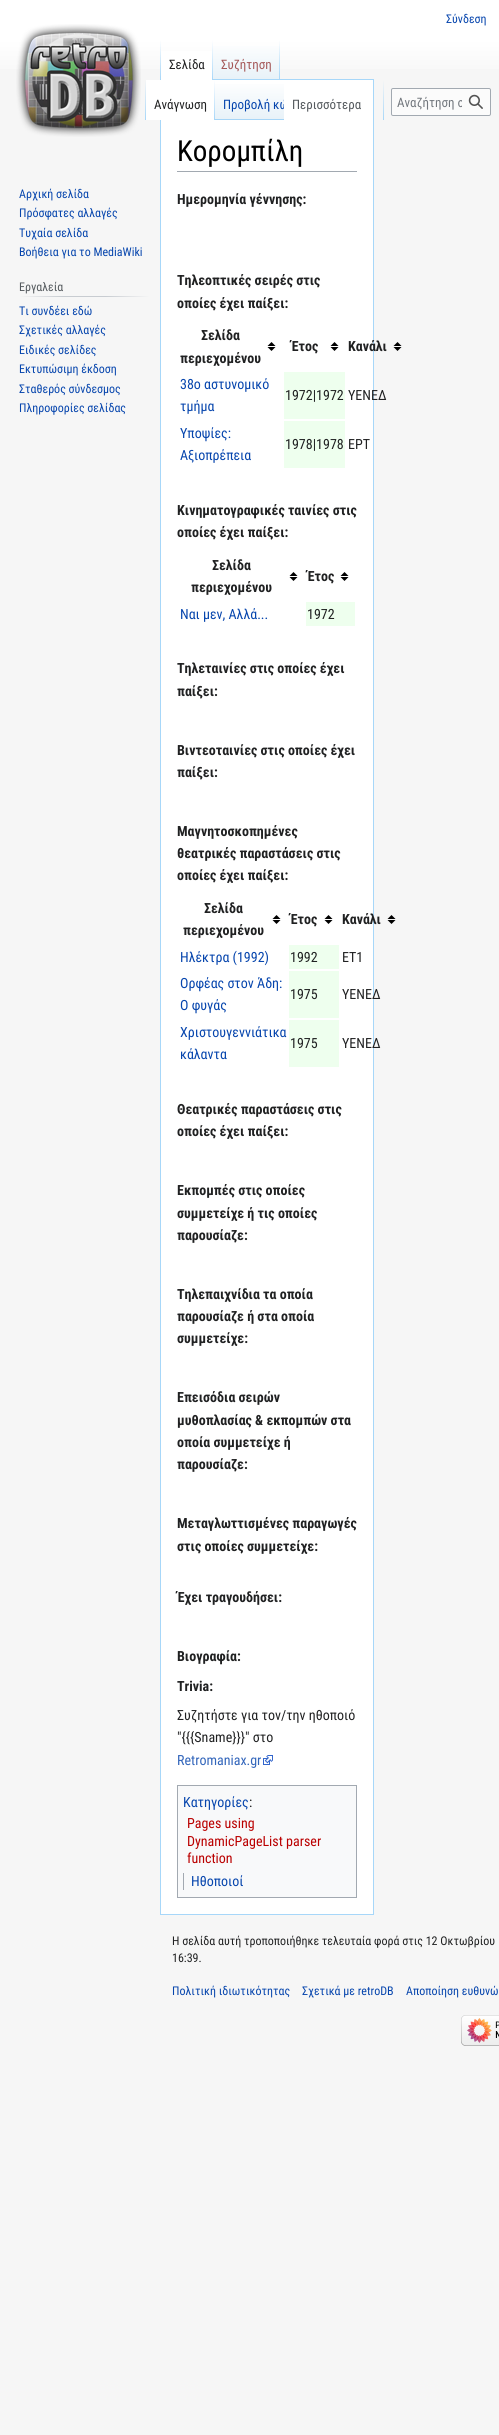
#include <cairo/cairo.h>
#include <math.h>
#include <stddef.h>

static cairo_t *cr;

static void use_color(int r, int g, int b) {
  cairo_set_source_rgb(cr, r / 255.0, g / 255.0, b / 255.0);
}

static void text(double x, double y, const char *s, const char *family, double size, int italic, int bold, int r, int g, int b) {
  cairo_select_font_face(cr, family, italic ? CAIRO_FONT_SLANT_ITALIC : CAIRO_FONT_SLANT_NORMAL,
    bold ? CAIRO_FONT_WEIGHT_BOLD : CAIRO_FONT_WEIGHT_NORMAL);
  cairo_set_font_size(cr, size);
  use_color(r, g, b);
  cairo_move_to(cr, x, y);
  cairo_show_text(cr, s);
}

static void box(double x, double y, double w, double h, int r, int g, int b) {
  use_color(r, g, b);
  cairo_rectangle(cr, x, y, w, h);
  cairo_fill(cr);
}

static void round_rect(double x, double y, double w, double h, double r) {
  cairo_new_sub_path(cr);
  cairo_arc(cr, x + w - r, y + h - r, r, 0, M_PI / 2);
  cairo_arc(cr, x + r, y + h - r, r, M_PI / 2, M_PI);
  cairo_arc(cr, x + r, y + r, r, M_PI, 1.5 * M_PI);
  cairo_arc(cr, x + w - r, y + r, r, 1.5 * M_PI, 2 * M_PI);
  cairo_close_path(cr);
}

static void picture(const char *path, double x, double y, double w, double h) {
  cairo_surface_t *image = cairo_image_surface_create_from_png(path);
  cairo_save(cr);
  cairo_set_source_surface(cr, image, x, y);
  cairo_rectangle(cr, x, y, w, h);
  cairo_fill(cr);
  cairo_restore(cr);
  cairo_surface_destroy(image);
}

static void draw(void) {
  cairo_pattern_t *gradient;
  use_color(246, 246, 246);
  cairo_paint(cr);
  gradient = cairo_pattern_create_linear(250, 0, 250, 80);
  cairo_pattern_add_color_stop_rgba(gradient, 0.5, 1, 1, 1, 1);
  cairo_pattern_add_color_stop_rgba(gradient, 1, 0.965, 0.965, 0.965, 1);
  cairo_set_source(cr, gradient);
  cairo_pattern_destroy(gradient);
  cairo_rectangle(cr, 0, 0, 499, 69);
  cairo_fill(cr);
  use_color(255, 255, 255);
  cairo_rectangle(cr, 160.5, 79.5, 213, 1835);
  cairo_fill_preserve(cr);
  use_color(167, 215, 249);
  cairo_set_line_width(cr, 1);
  cairo_stroke(cr);
  gradient = cairo_pattern_create_linear(161, 40, 161, 80);
  cairo_pattern_add_color_stop_rgba(gradient, 0, 0.655, 0.843, 0.976, 0);
  cairo_pattern_add_color_stop_rgba(gradient, 1, 0.655, 0.843, 0.976, 1);
  cairo_set_source(cr, gradient);
  cairo_pattern_destroy(gradient);
  cairo_rectangle(cr, 160, 40, 1, 40);
  cairo_fill(cr);
  box(161, 51, 51, 29, 255, 255, 255);
  gradient = cairo_pattern_create_linear(213, 40, 213, 80);
  cairo_pattern_add_color_stop_rgba(gradient, 0, 1, 1, 1, 1);
  cairo_pattern_add_color_stop_rgba(gradient, 1, 0.655, 0.843, 0.976, 1);
  cairo_set_source(cr, gradient);
  cairo_pattern_destroy(gradient);
  cairo_rectangle(cr, 212, 40, 1, 40);
  cairo_fill(cr);
  gradient = cairo_pattern_create_linear(247, 80, 247, 40);
  cairo_pattern_add_color_stop_rgba(gradient, 0, 0.467, 0.757, 0.965, 1);
  cairo_pattern_add_color_stop_rgba(gradient, 0.03, 0.91, 0.949, 0.973, 1);
  cairo_pattern_add_color_stop_rgba(gradient, 1, 1, 1, 1, 1);
  cairo_set_source(cr, gradient);
  cairo_pattern_destroy(gradient);
  cairo_rectangle(cr, 213, 46, 67, 33);
  cairo_fill(cr);
  gradient = cairo_pattern_create_linear(280, 40, 280, 80);
  cairo_pattern_add_color_stop_rgba(gradient, 0, 0.655, 0.843, 0.976, 0);
  cairo_pattern_add_color_stop_rgba(gradient, 1, 0.655, 0.843, 0.976, 1);
  cairo_set_source(cr, gradient);
  cairo_pattern_destroy(gradient);
  cairo_rectangle(cr, 279, 40, 1, 40);
  cairo_fill(cr);
  gradient = cairo_pattern_create_linear(146, 80, 146, 120);
  cairo_pattern_add_color_stop_rgba(gradient, 0, 0.965, 0.965, 0.965, 1);
  cairo_pattern_add_color_stop_rgba(gradient, 1, 0.655, 0.843, 0.976, 1);
  cairo_set_source(cr, gradient);
  cairo_pattern_destroy(gradient);
  cairo_rectangle(cr, 145, 80, 1, 40);
  cairo_fill(cr);
  box(146, 80, 15, 40, 255, 255, 255);
  gradient = cairo_pattern_create_linear(215, 80, 215, 120);
  cairo_pattern_add_color_stop_rgba(gradient, 0, 1, 1, 1, 1);
  cairo_pattern_add_color_stop_rgba(gradient, 1, 0.655, 0.843, 0.976, 1);
  cairo_set_source(cr, gradient);
  cairo_pattern_destroy(gradient);
  cairo_rectangle(cr, 214, 80, 1, 40);
  cairo_fill(cr);
  gradient = cairo_pattern_create_linear(250, 120, 250, 80);
  cairo_pattern_add_color_stop_rgba(gradient, 0, 0.467, 0.757, 0.965, 1);
  cairo_pattern_add_color_stop_rgba(gradient, 0.03, 0.91, 0.949, 0.973, 1);
  cairo_pattern_add_color_stop_rgba(gradient, 1, 1, 1, 1, 1);
  cairo_set_source(cr, gradient);
  cairo_pattern_destroy(gradient);
  cairo_rectangle(cr, 215, 84, 69, 36);
  cairo_fill(cr);
  gradient = cairo_pattern_create_linear(384, 80, 384, 120);
  cairo_pattern_add_color_stop_rgba(gradient, 0, 0.965, 0.965, 0.965, 1);
  cairo_pattern_add_color_stop_rgba(gradient, 1, 0.655, 0.843, 0.976, 1);
  cairo_set_source(cr, gradient);
  cairo_pattern_destroy(gradient);
  cairo_rectangle(cr, 383, 80, 1, 40);
  cairo_fill(cr);
  use_color(251, 251, 251);
  round_rect(391.5, 88.5, 99, 27, 1.5);
  cairo_fill_preserve(cr);
  use_color(162, 169, 177);
  cairo_stroke(cr);
  picture("img_01.png", 468, 94, 15, 15);
  picture("img_02.png", 16, 24, 125, 113);
  gradient = cairo_pattern_create_linear(19, 297, 150, 297);
  cairo_pattern_add_color_stop_rgba(gradient, 0, 0.965, 0.965, 0.965, 1);
  cairo_pattern_add_color_stop_rgba(gradient, 0.33, 0.784, 0.8, 0.82, 1);
  cairo_pattern_add_color_stop_rgba(gradient, 0.66, 0.784, 0.8, 0.82, 1);
  cairo_pattern_add_color_stop_rgba(gradient, 1, 0.965, 0.965, 0.965, 1);
  cairo_set_source(cr, gradient);
  cairo_pattern_destroy(gradient);
  cairo_rectangle(cr, 19, 296, 131, 1);
  cairo_fill(cr);
  box(177, 171, 180, 1, 162, 169, 177);
  picture("img_03.png", 267, 342, 9, 9);
  picture("img_03.png", 330, 342, 9, 9);
  picture("img_04.png", 393, 342, 9, 9);
  box(284, 372, 61, 47, 238, 255, 238);
  box(284, 421, 61, 47, 238, 255, 238);
  picture("img_03.png", 289, 572, 9, 9);
  picture("img_03.png", 340, 572, 9, 9);
  box(306, 602, 49, 24, 238, 255, 238);
  picture("img_03.png", 272, 915, 9, 9);
  picture("img_03.png", 324, 915, 9, 9);
  picture("img_04.png", 387, 915, 9, 9);
  box(289, 945, 50, 24, 238, 255, 238);
  box(289, 971, 50, 47, 238, 255, 238);
  box(289, 1020, 50, 47, 238, 255, 238);
  picture("img_05.png", 263, 1755, 10, 10);
  use_color(248, 249, 250);
  cairo_rectangle(cr, 177.5, 1785.5, 179, 112);
  cairo_fill_preserve(cr);
  use_color(162, 169, 177);
  cairo_stroke(cr);
  box(183, 1873, 1, 17, 162, 169, 177);
  picture("img_06.png", 461, 2015, 38, 31);
  text(446, 23, "Σύνδεση", "Roboto Condensed", 12, 0, 0, 6, 69, 173);
  text(169, 69, "Σελίδα", "Roboto Condensed", 13, 0, 0, 32, 33, 34);
  text(221, 69, "Συζήτηση", "Roboto Condensed", 13, 0, 0, 165, 88, 88);
  text(154, 109, "Ανάγνωση", "Roboto Condensed", 13, 0, 0, 32, 33, 34);
  cairo_save(cr);
  cairo_rectangle(cr, 215, 80, 69, 40);
  cairo_clip(cr);
  text(223, 109, "Προβολή κώ", "Roboto Condensed", 13, 0, 0, 6, 69, 173);
  cairo_restore(cr);
  text(292, 109, "Περισσότερα", "Roboto Condensed", 13, 0, 0, 84, 89, 93);
  cairo_save(cr);
  cairo_rectangle(cr, 397, 95, 65, 15);
  cairo_clip(cr);
  text(397, 107, "Αναζήτηση σ", "Roboto Condensed", 13, 0, 0, 114, 119, 125);
  cairo_restore(cr);
  text(19, 198, "Αρχική σελίδα", "Roboto Condensed", 12, 0, 0, 6, 69, 173);
  text(19, 217, "Πρόσφατες αλλαγές", "Roboto Condensed", 12, 0, 0, 6, 69, 173);
  text(19, 237, "Τυχαία σελίδα", "Roboto Condensed", 12, 0, 0, 6, 69, 173);
  text(19, 256, "Βοήθεια για το MediaWiki", "Roboto Condensed", 12, 0, 0, 6, 69, 173);
  text(19, 291, "Εργαλεία", "Roboto Condensed", 12, 0, 0, 84, 89, 93);
  text(19, 315, "Τι συνδέει εδώ", "Roboto Condensed", 12, 0, 0, 6, 69, 173);
  text(19, 334, "Σχετικές αλλαγές", "Roboto Condensed", 12, 0, 0, 6, 69, 173);
  text(19, 354, "Ειδικές σελίδες", "Roboto Condensed", 12, 0, 0, 6, 69, 173);
  text(19, 373, "Εκτυπώσιμη έκδοση", "Roboto Condensed", 12, 0, 0, 6, 69, 173);
  text(19, 393, "Σταθερός σύνδεσμος", "Roboto Condensed", 12, 0, 0, 6, 69, 173);
  text(19, 412, "Πληροφορίες σελίδας", "Roboto Condensed", 12, 0, 0, 6, 69, 173);
  text(177, 161, "Κορομπίλη", "Roboto Condensed", 29, 0, 0, 0, 0, 0);
  text(177, 204, "Ημερομηνία γέννησης:", "Roboto Condensed", 14, 0, 1, 32, 33, 34);
  text(177, 285, "Τηλεοπτικές σειρές στις", "Roboto Condensed", 14, 0, 1, 32, 33, 34);
  text(177, 308, "οποίες έχει παίξει:", "Roboto Condensed", 14, 0, 1, 32, 33, 34);
  text(201, 340, "Σελίδα", "Roboto Condensed", 14, 0, 1, 32, 33, 34);
  text(180, 363, "περιεχομένου", "Roboto Condensed", 14, 0, 1, 32, 33, 34);
  text(291, 351, "Έτος", "Roboto Condensed", 14, 0, 1, 32, 33, 34);
  text(348, 351, "Κανάλι", "Roboto Condensed", 14, 0, 1, 32, 33, 34);
  text(180, 389, "38ο αστυνομικό", "Roboto Condensed", 14, 0, 0, 6, 69, 173);
  text(180, 411, "τμήμα", "Roboto Condensed", 14, 0, 0, 6, 69, 173);
  text(285, 400, "1972|1972", "Roboto Condensed", 14, 0, 0, 32, 33, 34);
  text(348, 400, "ΥΕΝΕΔ", "Roboto Condensed", 14, 0, 0, 32, 33, 34);
  text(180, 438, "Υποψίες:", "Roboto Condensed", 14, 0, 0, 6, 69, 173);
  text(180, 460, "Αξιοπρέπεια", "Roboto Condensed", 14, 0, 0, 6, 69, 173);
  text(285, 449, "1978|1978", "Roboto Condensed", 14, 0, 0, 32, 33, 34);
  text(348, 449, "ΕΡΤ", "Roboto Condensed", 14, 0, 0, 32, 33, 34);
  text(177, 515, "Κινηματογραφικές ταινίες στις", "Roboto Condensed", 14, 0, 1, 32, 33, 34);
  text(177, 537, "οποίες έχει παίξει:", "Roboto Condensed", 14, 0, 1, 32, 33, 34);
  text(212, 570, "Σελίδα", "Roboto Condensed", 14, 0, 1, 32, 33, 34);
  text(191, 592, "περιεχομένου", "Roboto Condensed", 14, 0, 1, 32, 33, 34);
  text(307, 581, "Έτος", "Roboto Condensed", 14, 0, 1, 32, 33, 34);
  text(180, 619, "Ναι μεν, Αλλά...", "Roboto Condensed", 14, 0, 0, 6, 69, 173);
  text(307, 619, "1972", "Roboto Condensed", 14, 0, 0, 32, 33, 34);
  text(177, 673, "Τηλεταινίες στις οποίες έχει", "Roboto Condensed", 14, 0, 1, 32, 33, 34);
  text(177, 696, "παίξει:", "Roboto Condensed", 14, 0, 1, 32, 33, 34);
  text(177, 755, "Βιντεοταινίες στις οποίες έχει", "Roboto Condensed", 14, 0, 1, 32, 33, 34);
  text(177, 777, "παίξει:", "Roboto Condensed", 14, 0, 1, 32, 33, 34);
  text(177, 836, "Μαγνητοσκοπημένες", "Roboto Condensed", 14, 0, 1, 32, 33, 34);
  text(177, 858, "θεατρικές παραστάσεις στις", "Roboto Condensed", 14, 0, 1, 32, 33, 34);
  text(177, 880, "οποίες έχει παίξει:", "Roboto Condensed", 14, 0, 1, 32, 33, 34);
  text(204, 913, "Σελίδα", "Roboto Condensed", 14, 0, 1, 32, 33, 34);
  text(183, 935, "περιεχομένου", "Roboto Condensed", 14, 0, 1, 32, 33, 34);
  text(290, 924, "Έτος", "Roboto Condensed", 14, 0, 1, 32, 33, 34);
  text(342, 924, "Κανάλι", "Roboto Condensed", 14, 0, 1, 32, 33, 34);
  text(180, 962, "Ηλέκτρα (1992)", "Roboto Condensed", 14, 0, 0, 6, 69, 173);
  text(290, 962, "1992", "Roboto Condensed", 14, 0, 0, 32, 33, 34);
  text(342, 962, "ΕΤ1", "Roboto Condensed", 14, 0, 0, 32, 33, 34);
  text(180, 988, "Ορφέας στον Άδη:", "Roboto Condensed", 14, 0, 0, 6, 69, 173);
  text(180, 1010, "Ο φυγάς", "Roboto Condensed", 14, 0, 0, 6, 69, 173);
  text(290, 999, "1975", "Roboto Condensed", 14, 0, 0, 32, 33, 34);
  text(342, 999, "ΥΕΝΕΔ", "Roboto Condensed", 14, 0, 0, 32, 33, 34);
  text(180, 1037, "Χριστουγεννιάτικα", "Roboto Condensed", 14, 0, 0, 6, 69, 173);
  text(180, 1059, "κάλαντα", "Roboto Condensed", 14, 0, 0, 6, 69, 173);
  text(290, 1048, "1975", "Roboto Condensed", 14, 0, 0, 32, 33, 34);
  text(342, 1048, "ΥΕΝΕΔ", "Roboto Condensed", 14, 0, 0, 32, 33, 34);
  text(177, 1114, "Θεατρικές παραστάσεις στις", "Roboto Condensed", 14, 0, 1, 32, 33, 34);
  text(177, 1136, "οποίες έχει παίξει:", "Roboto Condensed", 14, 0, 1, 32, 33, 34);
  text(177, 1195, "Εκπομπές στις οποίες", "Roboto Condensed", 14, 0, 1, 32, 33, 34);
  text(177, 1218, "συμμετείχε ή τις οποίες", "Roboto Condensed", 14, 0, 1, 32, 33, 34);
  text(177, 1240, "παρουσίαζε:", "Roboto Condensed", 14, 0, 1, 32, 33, 34);
  text(177, 1299, "Τηλεπαιχνίδια τα οποία", "Roboto Condensed", 14, 0, 1, 32, 33, 34);
  text(177, 1321, "παρουσίαζε ή στα οποία", "Roboto Condensed", 14, 0, 1, 32, 33, 34);
  text(177, 1343, "συμμετείχε:", "Roboto Condensed", 14, 0, 1, 32, 33, 34);
  text(177, 1402, "Επεισόδια σειρών", "Roboto Condensed", 14, 0, 1, 32, 33, 34);
  text(177, 1425, "μυθοπλασίας & εκπομπών στα", "Roboto Condensed", 14, 0, 1, 32, 33, 34);
  text(177, 1447, "οποία συμμετείχε ή", "Roboto Condensed", 14, 0, 1, 32, 33, 34);
  text(177, 1469, "παρουσίαζε:", "Roboto Condensed", 14, 0, 1, 32, 33, 34);
  text(177, 1528, "Μεταγλωττισμένες παραγωγές", "Roboto Condensed", 14, 0, 1, 32, 33, 34);
  text(177, 1551, "στις οποίες συμμετείχε:", "Roboto Condensed", 14, 0, 1, 32, 33, 34);
  text(177, 1602, "Έχει τραγουδήσει:", "Roboto Condensed", 14, 0, 1, 32, 33, 34);
  text(177, 1661, "Βιογραφία:", "Roboto Condensed", 14, 0, 1, 32, 33, 34);
  text(177, 1691, "Trivia:", "Roboto Condensed", 14, 0, 1, 32, 33, 34);
  text(177, 1720, "Συζητήστε για τον/την ηθοποιό", "Roboto Condensed", 14, 0, 0, 32, 33, 34);
  text(177, 1742, "\"{{{Sname}}}\" στο", "Roboto Condensed", 14, 0, 0, 32, 33, 34);
  text(177, 1765, "Retromaniax.gr", "Roboto Condensed", 14, 0, 0, 51, 102, 187);
  text(183, 1807, "Κατηγορίες", "Roboto Condensed", 14, 0, 0, 6, 69, 173);
  text(249, 1807, ":", "Roboto Condensed", 14, 0, 0, 32, 33, 34);
  text(187, 1828, "Pages using", "Roboto Condensed", 14, 0, 0, 186, 0, 0);
  text(187, 1846, "DynamicPageList parser", "Roboto Condensed", 14, 0, 0, 186, 0, 0);
  text(187, 1863, "function", "Roboto Condensed", 14, 0, 0, 186, 0, 0);
  text(191, 1886, "Ηθοποιοί", "Roboto Condensed", 14, 0, 0, 6, 69, 173);
  text(172, 1945, "Η σελίδα αυτή τροποποιήθηκε τελευταία φορά στις 12 Οκτωβρίου", "Roboto Condensed", 12, 0, 0, 32, 33, 34);
  text(172, 1962, "16:39.", "Roboto Condensed", 12, 0, 0, 32, 33, 34);
  text(172, 1995, "Πολιτική ιδιωτικότητας", "Roboto Condensed", 12, 0, 0, 6, 69, 173);
  text(302, 1995, "Σχετικά με retroDB", "Roboto Condensed", 12, 0, 0, 6, 69, 173);
  text(406, 1995, "Αποποίηση ευθυνώ", "Roboto Condensed", 12, 0, 0, 6, 69, 173);
}

int main(void) {
  cairo_surface_t *surface = cairo_image_surface_create(CAIRO_FORMAT_RGB24, 499, 2435);
  cr = cairo_create(surface);
  cairo_font_options_t *options = cairo_font_options_create();
  cairo_font_options_set_hint_metrics(options, CAIRO_HINT_METRICS_OFF);
  cairo_font_options_set_hint_style(options, CAIRO_HINT_STYLE_NONE);
  cairo_set_font_options(cr, options);
  cairo_set_miter_limit(cr, 4);
  draw();
  cairo_surface_write_to_png(surface, "out.png");
  cairo_font_options_destroy(options);
  cairo_destroy(cr);
  cairo_surface_destroy(surface);
  return 0;
}
